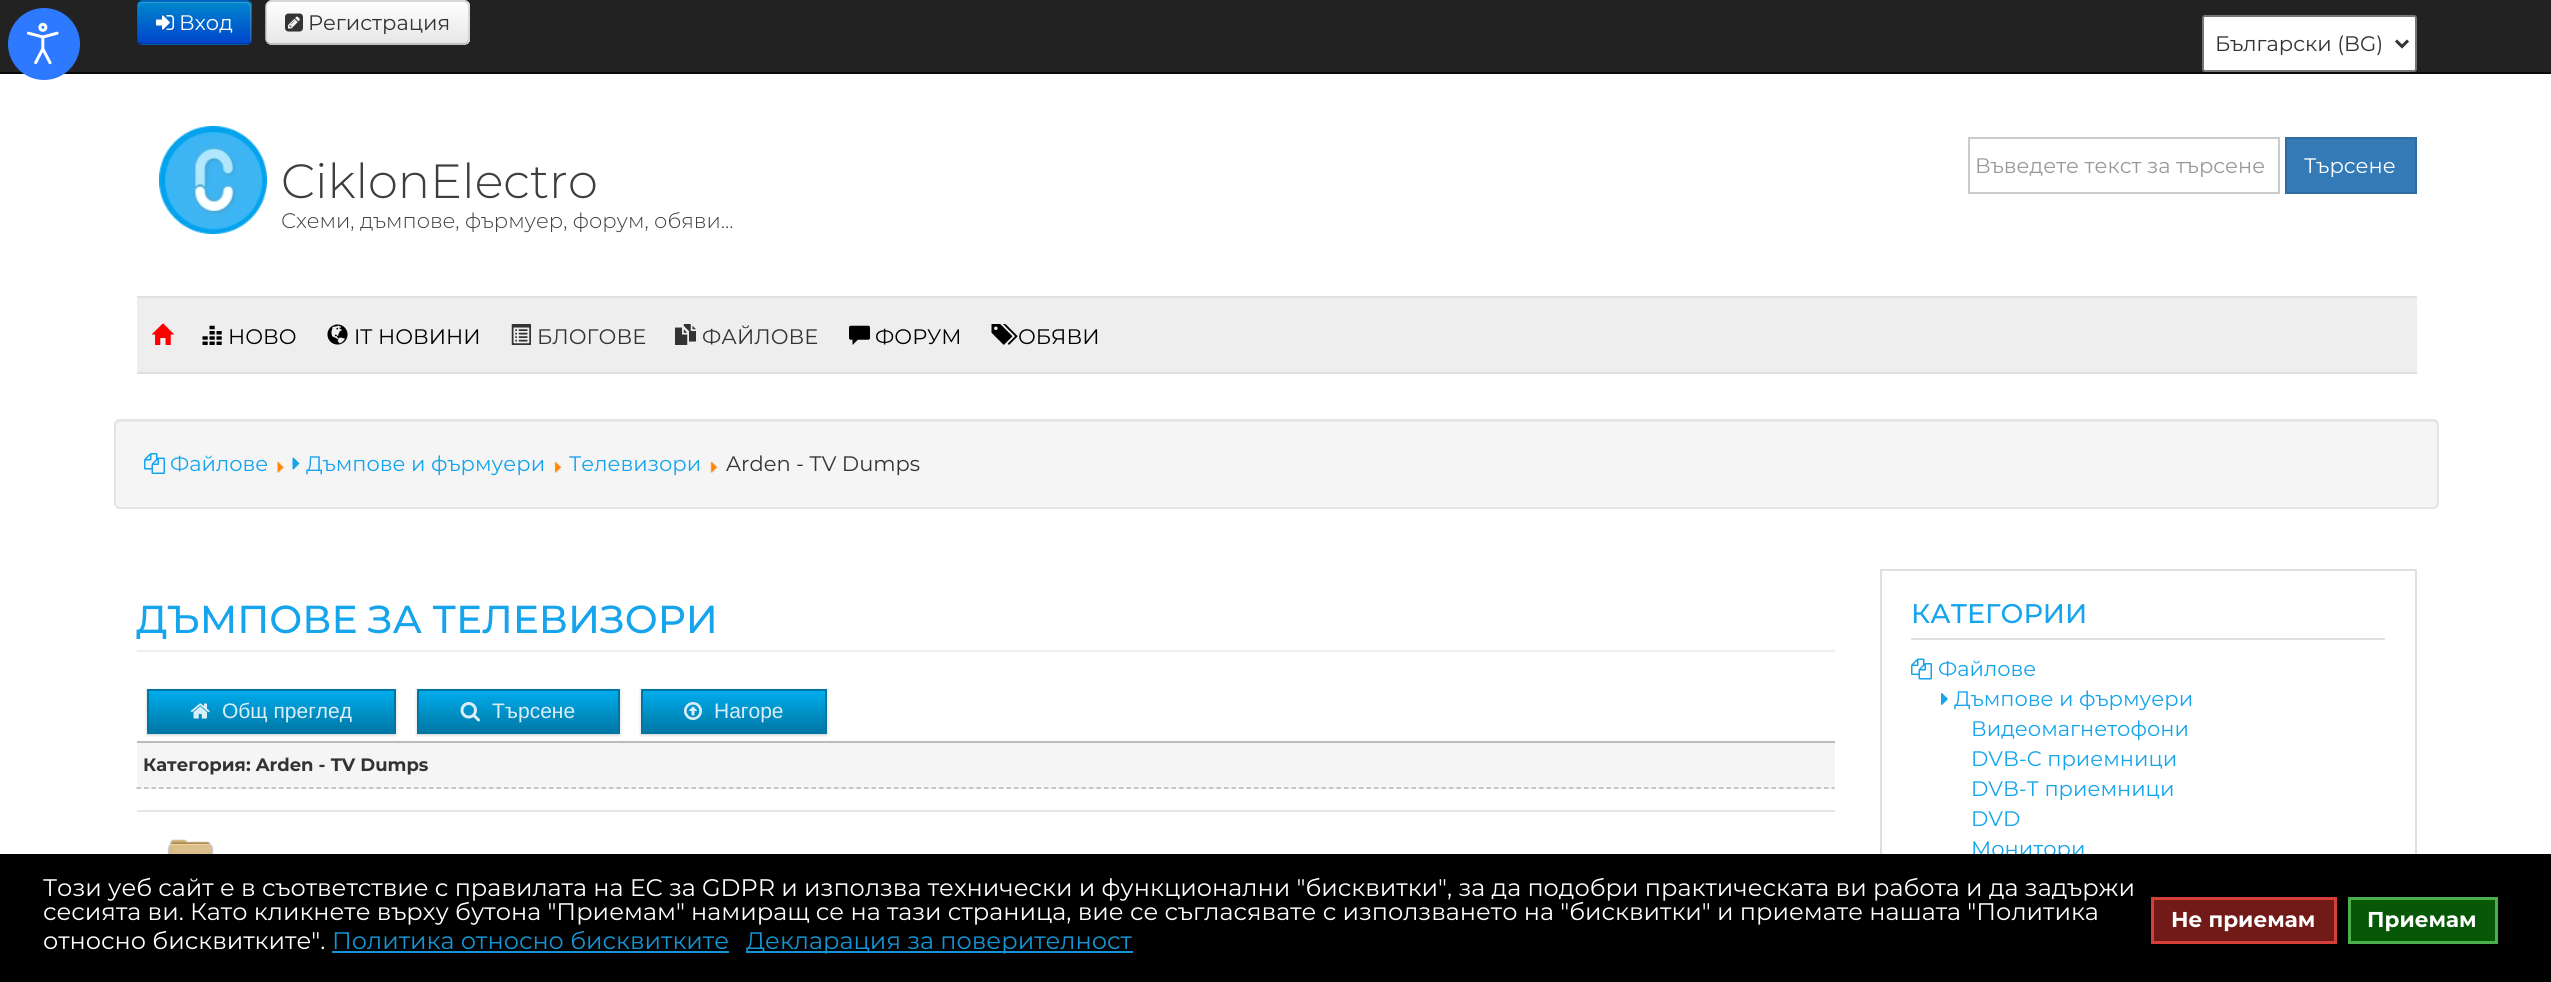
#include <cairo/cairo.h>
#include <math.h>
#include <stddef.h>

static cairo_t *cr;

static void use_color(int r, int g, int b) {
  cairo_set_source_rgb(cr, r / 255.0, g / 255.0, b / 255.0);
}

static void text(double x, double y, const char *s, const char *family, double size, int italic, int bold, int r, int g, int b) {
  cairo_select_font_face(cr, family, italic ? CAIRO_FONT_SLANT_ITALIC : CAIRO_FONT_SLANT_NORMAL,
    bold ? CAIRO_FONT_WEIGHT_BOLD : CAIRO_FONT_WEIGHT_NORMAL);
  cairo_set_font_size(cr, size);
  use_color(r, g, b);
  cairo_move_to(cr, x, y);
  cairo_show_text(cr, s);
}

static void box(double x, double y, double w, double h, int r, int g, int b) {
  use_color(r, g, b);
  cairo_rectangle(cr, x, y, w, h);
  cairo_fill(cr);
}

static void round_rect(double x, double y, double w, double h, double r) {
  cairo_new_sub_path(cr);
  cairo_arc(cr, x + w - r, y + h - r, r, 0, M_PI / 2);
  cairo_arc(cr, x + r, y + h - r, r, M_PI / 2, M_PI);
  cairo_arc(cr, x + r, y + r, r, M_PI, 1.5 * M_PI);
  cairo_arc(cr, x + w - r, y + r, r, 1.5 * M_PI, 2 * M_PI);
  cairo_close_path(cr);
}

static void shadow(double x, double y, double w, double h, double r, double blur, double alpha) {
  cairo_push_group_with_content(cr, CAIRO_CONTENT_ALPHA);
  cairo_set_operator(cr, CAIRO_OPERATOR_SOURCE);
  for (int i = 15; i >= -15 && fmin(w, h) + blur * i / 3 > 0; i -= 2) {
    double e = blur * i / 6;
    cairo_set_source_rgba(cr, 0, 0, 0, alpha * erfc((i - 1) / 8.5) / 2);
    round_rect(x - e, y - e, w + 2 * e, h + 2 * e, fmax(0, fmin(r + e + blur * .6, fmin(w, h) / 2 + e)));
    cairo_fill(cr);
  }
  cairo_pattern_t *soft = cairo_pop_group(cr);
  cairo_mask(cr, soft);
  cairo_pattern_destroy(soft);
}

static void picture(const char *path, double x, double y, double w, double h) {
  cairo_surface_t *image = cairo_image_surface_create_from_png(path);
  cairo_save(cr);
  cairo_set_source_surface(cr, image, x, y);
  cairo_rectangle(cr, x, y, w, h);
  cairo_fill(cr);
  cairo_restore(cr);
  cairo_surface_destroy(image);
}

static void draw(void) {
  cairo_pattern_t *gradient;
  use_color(255, 255, 255);
  cairo_paint(cr);
  box(0, 0, 2551, 72, 34, 34, 34);
  box(0, 72, 2551, 2, 8, 8, 8);
  use_color(45, 121, 255);
  cairo_arc(cr, 44, 44, 36, 0, 2 * M_PI);
  cairo_fill(cr);
  picture("img_01.png", 26, 22, 33, 43);
  use_color(0, 109, 204);
  round_rect(137, 0, 115, 45, 6);
  cairo_fill(cr);
  cairo_save(cr);
  round_rect(137, 0, 115, 45, 6);
  cairo_clip(cr);
  gradient = cairo_pattern_create_linear(194, 1.5, 194, 44);
  cairo_pattern_add_color_stop_rgba(gradient, 0, 0, 0.533, 0.8, 1);
  cairo_pattern_add_color_stop_rgba(gradient, 1, 0, 0.267, 0.8, 1);
  cairo_set_source(cr, gradient);
  cairo_pattern_destroy(gradient);
  cairo_rectangle(cr, 137, 2, 115, 42);
  cairo_fill(cr);
  cairo_restore(cr);
  cairo_set_source_rgba(cr, 1, 1, 1, 0.2);
  cairo_new_path(cr);
  cairo_move_to(cr, 142, 3);
  cairo_line_to(cr, 246, 3);
  cairo_curve_to(cr, 248, 3, 250, 5, 250, 8);
  cairo_line_to(cr, 250, 40);
  cairo_line_to(cr, 249, 43);
  cairo_curve_to(cr, 250, 42, 251, 40, 251, 39);
  cairo_line_to(cr, 251, 7);
  cairo_curve_to(cr, 251, 4, 249, 2, 246, 2);
  cairo_line_to(cr, 143, 2);
  cairo_curve_to(cr, 140, 2, 138, 4, 138, 7);
  cairo_line_to(cr, 138, 8);
  cairo_curve_to(cr, 138, 5, 140, 3, 142, 3);
  cairo_close_path(cr);
  cairo_fill(cr);
  cairo_new_path(cr);
  cairo_move_to(cr, 249.5, 42.5);
  cairo_line_to(cr, 246.5, 44);
  cairo_line_to(cr, 142, 44);
  cairo_line_to(cr, 139, 42.5);
  cairo_set_source_rgba(cr, 0, 0, 0, 0.25);
  cairo_set_line_width(cr, 1.5);
  cairo_stroke(cr);
  cairo_new_path(cr);
  cairo_move_to(cr, 139, 42.5);
  cairo_curve_to(cr, 136.5, 40.5, 137, 36.5, 137, 33.5);
  cairo_line_to(cr, 137, 22.5);
  cairo_curve_to(cr, 137, -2.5, 133.5, 1, 160, 1);
  cairo_line_to(cr, 229, 1);
  cairo_curve_to(cr, 255, 1, 251, -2.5, 251, 22.5);
  cairo_line_to(cr, 251, 33.5);
  cairo_curve_to(cr, 251, 36.5, 252, 40.5, 249.5, 42.5);
  cairo_set_source_rgba(cr, 0, 0, 0, 0.1);
  cairo_stroke(cr);
  picture("img_02.png", 156, 15, 18, 15);
  use_color(245, 245, 245);
  round_rect(266, 0, 204, 45, 6);
  cairo_fill(cr);
  cairo_save(cr);
  round_rect(266, 0, 204, 45, 6);
  cairo_clip(cr);
  gradient = cairo_pattern_create_linear(368, 1.5, 368, 44);
  cairo_pattern_add_color_stop_rgba(gradient, 0, 1, 1, 1, 1);
  cairo_pattern_add_color_stop_rgba(gradient, 1, 0.902, 0.902, 0.902, 1);
  cairo_set_source(cr, gradient);
  cairo_pattern_destroy(gradient);
  cairo_rectangle(cr, 266, 2, 204, 42);
  cairo_fill(cr);
  cairo_restore(cr);
  cairo_new_path(cr);
  cairo_move_to(cr, 467, 42.5);
  cairo_curve_to(cr, 466, 43.5, 465, 44, 463.5, 44);
  cairo_line_to(cr, 271.5, 44);
  cairo_curve_to(cr, 270, 44, 269, 43.5, 268, 42.5);
  use_color(179, 179, 179);
  cairo_stroke(cr);
  cairo_new_path(cr);
  cairo_move_to(cr, 268, 42.5);
  cairo_curve_to(cr, 267, 41.5, 266, 40.5, 266, 39);
  cairo_line_to(cr, 266, 6);
  cairo_curve_to(cr, 266, 4.5, 267, 3.5, 268, 2.5);
  cairo_curve_to(cr, 269, 1.5, 270, 1, 271.5, 1);
  cairo_line_to(cr, 463.5, 1);
  cairo_curve_to(cr, 465, 1, 466, 1.5, 467, 2.5);
  cairo_curve_to(cr, 468, 3.5, 469, 4.5, 469, 6);
  cairo_line_to(cr, 469, 39);
  cairo_curve_to(cr, 469, 40.5, 468, 41.5, 467, 42.5);
  use_color(204, 204, 204);
  cairo_stroke(cr);
  picture("img_03.png", 285, 13, 18, 19);
  use_color(255, 255, 255);
  round_rect(2203, 16, 213, 55, 2);
  cairo_fill_preserve(cr);
  use_color(118, 118, 118);
  cairo_set_line_width(cr, 2);
  cairo_stroke(cr);
  cairo_new_path(cr);
  cairo_move_to(cr, 2396, 40.5);
  cairo_line_to(cr, 2402, 46.5);
  cairo_line_to(cr, 2408, 40.5);
  use_color(51, 51, 51);
  cairo_set_line_width(cr, 3);
  cairo_stroke(cr);
  picture("img_04.png", 159, 126, 108, 108);
  cairo_rectangle(cr, 1969, 138, 310, 55);
  use_color(204, 204, 204);
  cairo_set_line_width(cr, 2);
  cairo_stroke(cr);
  use_color(51, 122, 183);
  cairo_rectangle(cr, 2286, 138, 130, 55);
  cairo_fill_preserve(cr);
  use_color(46, 109, 164);
  cairo_stroke(cr);
  box(137, 298, 2280, 74, 238, 238, 238);
  box(137, 296, 2280, 2, 224, 224, 224);
  box(137, 372, 2280, 2, 224, 224, 224);
  picture("img_05.png", 151, 323, 23, 22);
  picture("img_06.png", 202, 325, 20, 20);
  picture("img_07.png", 327, 324, 21, 21);
  picture("img_08.png", 511, 324, 20, 21);
  picture("img_09.png", 675, 324, 21, 21);
  picture("img_10.png", 849, 325, 21, 20);
  picture("img_11.png", 991, 324, 27, 21);
  use_color(245, 245, 245);
  round_rect(114, 419, 2325, 90, 6);
  cairo_fill(cr);
  use_color(233, 233, 233);
  cairo_new_path(cr);
  cairo_move_to(cr, 120, 422);
  cairo_line_to(cr, 2433, 422);
  cairo_curve_to(cr, 2435, 422, 2438, 424, 2438, 426);
  cairo_line_to(cr, 2438, 425);
  cairo_curve_to(cr, 2438, 422, 2436, 420, 2433, 420);
  cairo_line_to(cr, 121, 420);
  cairo_curve_to(cr, 118, 420, 116, 422, 116, 425);
  cairo_line_to(cr, 116, 426);
  cairo_curve_to(cr, 116, 424, 118, 422, 120, 422);
  cairo_close_path(cr);
  cairo_fill(cr);
  round_rect(115, 420, 2323, 88, 5);
  use_color(227, 227, 227);
  cairo_stroke(cr);
  picture("img_12.png", 144, 453, 21, 21);
  picture("img_13.png", 277, 461, 7, 12);
  picture("img_14.png", 292, 457, 8, 13);
  picture("img_15.png", 554, 461, 8, 12);
  picture("img_15.png", 710, 461, 8, 12);
  box(137, 650, 1698, 2, 238, 238, 238);
  box(137, 741, 1698, 2, 187, 187, 187);
  use_color(0, 0, 0);
  shadow(147, 690, 249, 45, 0, 1.5, 0.2);
  gradient = cairo_pattern_create_linear(272, 690, 272, 732);
  cairo_pattern_add_color_stop_rgba(gradient, 0, 0, 0.678, 0.933, 1);
  cairo_pattern_add_color_stop_rgba(gradient, 1, 0, 0.471, 0.647, 1);
  cairo_set_source(cr, gradient);
  cairo_pattern_destroy(gradient);
  cairo_rectangle(cr, 149, 691, 245, 41);
  cairo_fill(cr);
  cairo_rectangle(cr, 148, 690, 247, 43);
  use_color(0, 118, 163);
  cairo_stroke(cr);
  picture("img_16.png", 190, 703, 20, 16);
  use_color(0, 0, 0);
  shadow(417, 690, 203, 45, 0, 1.5, 0.2);
  gradient = cairo_pattern_create_linear(518, 690, 518, 732);
  cairo_pattern_add_color_stop_rgba(gradient, 0, 0, 0.678, 0.933, 1);
  cairo_pattern_add_color_stop_rgba(gradient, 1, 0, 0.471, 0.647, 1);
  cairo_set_source(cr, gradient);
  cairo_pattern_destroy(gradient);
  cairo_rectangle(cr, 419, 691, 199, 41);
  cairo_fill(cr);
  cairo_rectangle(cr, 418, 690, 201, 43);
  use_color(0, 118, 163);
  cairo_stroke(cr);
  picture("img_17.png", 460, 702, 20, 20);
  use_color(0, 0, 0);
  shadow(641, 690, 186, 45, 0, 1.5, 0.2);
  gradient = cairo_pattern_create_linear(734, 690, 734, 732);
  cairo_pattern_add_color_stop_rgba(gradient, 0, 0, 0.678, 0.933, 1);
  cairo_pattern_add_color_stop_rgba(gradient, 1, 0, 0.471, 0.647, 1);
  cairo_set_source(cr, gradient);
  cairo_pattern_destroy(gradient);
  cairo_rectangle(cr, 643, 691, 182, 41);
  cairo_fill(cr);
  cairo_rectangle(cr, 642, 690, 184, 43);
  use_color(0, 118, 163);
  cairo_stroke(cr);
  picture("img_18.png", 684, 702, 18, 18);
  box(137, 743, 1698, 46, 245, 245, 245);
  cairo_new_path(cr);
  cairo_move_to(cr, 136.5, 788);
  cairo_line_to(cr, 1834.5, 788);
  use_color(181, 181, 181);
  cairo_set_line_width(cr, 1.5);
  cairo_set_dash(cr, (double[]){4.5, 3}, 2, 0);
  cairo_stroke(cr);
  box(137, 810, 1698, 2, 229, 231, 235);
  picture("img_19.png", 167, 839, 47, 15);
  cairo_rectangle(cr, 1881, 570, 535, 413);
  use_color(224, 224, 224);
  cairo_set_line_width(cr, 2);
  cairo_set_dash(cr, NULL, 0, 0);
  cairo_stroke(cr);
  box(1911, 638, 474, 2, 224, 224, 224);
  picture("img_20.png", 1911, 658, 21, 22);
  picture("img_21.png", 1941, 693, 7, 12);
  text(179, 30, "Вход", "Montserrat", 21, 0, 0, 255, 255, 255);
  text(308, 30, "Регистрация", "Montserrat", 21, 0, 0, 51, 51, 51);
  text(2215, 51, "Български (BG)", "Montserrat", 21, 0, 0, 51, 51, 51);
  text(281, 198, "CiklonElectro", "Montserrat Light", 48, 0, 0, 62, 62, 62);
  text(281, 228, "Схеми, дъмпове, фърмуер, форум, обяви...", "Montserrat Light", 21, 0, 0, 62, 62, 62);
  text(1975, 173, "Въведете текст за търсене", "Montserrat", 21, 0, 0, 153, 153, 153);
  text(2304, 173, "Търсене", "Montserrat", 21, 0, 0, 255, 255, 255);
  text(228, 344, "НОВО", "Montserrat", 21, 0, 0, 0, 0, 0);
  text(354, 344, "IT НОВИНИ", "Montserrat", 21, 0, 0, 0, 0, 0);
  text(537, 344, "БЛОГОВЕ", "Montserrat", 21, 0, 0, 51, 51, 51);
  text(702, 344, "ФАЙЛОВЕ", "Montserrat", 21, 0, 0, 51, 51, 51);
  text(875, 344, "ФОРУМ", "Montserrat", 21, 0, 0, 0, 0, 0);
  text(1018, 344, "ОБЯВИ", "Montserrat", 21, 0, 0, 0, 0, 0);
  text(170, 471, "Файлове", "Montserrat", 21, 0, 0, 22, 164, 236);
  text(306, 471, "Дъмпове и фърмуери", "Montserrat", 21, 0, 0, 22, 164, 236);
  text(569, 471, "Телевизори", "Montserrat", 21, 0, 0, 22, 164, 236);
  text(726, 471, "Arden - TV Dumps", "Montserrat", 21, 0, 0, 51, 51, 51);
  text(136, 633, "ДЪМПОВЕ ЗА ТЕЛЕВИЗОРИ", "Montserrat Medium", 39, 0, 0, 22, 164, 236);
  text(222, 718, "Общ преглед", "Liberation Sans", 21, 0, 0, 217, 238, 247);
  text(492, 718, "Търсене", "Liberation Sans", 21, 0, 0, 217, 238, 247);
  text(714, 718, "Нагоре", "Liberation Sans", 21, 0, 0, 217, 238, 247);
  text(143, 771, "Категория: Arden - TV Dumps", "Montserrat", 18, 0, 1, 51, 51, 51);
  text(1911, 623, "КАТЕГОРИИ", "Montserrat Medium", 27, 0, 0, 22, 164, 236);
  text(1938, 676, "Файлове", "Montserrat", 21, 0, 0, 22, 164, 236);
  text(1954, 706, "Дъмпове и фърмуери", "Montserrat", 21, 0, 0, 22, 164, 236);
  text(1971, 736, "Видеомагнетофони", "Montserrat", 21, 0, 0, 22, 164, 236);
  text(1971, 766, "DVB-C приемници", "Montserrat", 21, 0, 0, 22, 164, 236);
  text(1971, 796, "DVB-T приемници", "Montserrat", 21, 0, 0, 22, 164, 236);
  text(1971, 826, "DVD", "Montserrat", 21, 0, 0, 22, 164, 236);
  text(1971, 856, "Монитори", "Montserrat", 21, 0, 0, 22, 164, 236);
  box(0, 854, 2551, 128, 0, 0, 0);
  text(43, 896, "Този уеб сайт е в съответствие с правилата на ЕС за GDPR и използва технически и функционални \"бисквитки\", за да подобри практическата ви работа и да задържи", "Montserrat", 24, 0, 0, 255, 255, 255);
  text(43, 920, "сесията ви. Като кликнете върху бутона \"Приемам\" намиращ се на тази страница, вие се съгласявате с използването на \"бисквитки\" и приемате нашата \"Политика", "Montserrat", 24, 0, 0, 255, 255, 255);
  text(43, 949, "относно бисквитките\".", "Montserrat", 24, 0, 0, 255, 255, 255);
  text(332, 949, "Политика относно бисквитките", "Montserrat", 24, 0, 0, 20, 148, 212);
  box(332, 951, 397, 2, 20, 148, 212);
  box(746, 951, 387, 2, 20, 148, 212);
  text(746, 949, "Декларация за поверителност", "Montserrat", 24, 0, 0, 20, 148, 212);
  use_color(114, 26, 23);
  cairo_rectangle(cr, 2152.5, 898.5, 183, 44);
  cairo_fill_preserve(cr);
  use_color(212, 63, 58);
  cairo_set_line_width(cr, 3);
  cairo_stroke(cr);
  text(2171, 927, "Не приемам", "Montserrat", 21.5, 0, 1, 255, 255, 255);
  use_color(6, 87, 6);
  cairo_rectangle(cr, 2349.5, 898.5, 147, 44);
  cairo_fill_preserve(cr);
  use_color(76, 174, 76);
  cairo_stroke(cr);
  text(2367, 927, "Приемам", "Montserrat", 21.5, 0, 1, 255, 255, 255);
}

int main(void) {
  cairo_surface_t *surface = cairo_image_surface_create(CAIRO_FORMAT_RGB24, 2551, 982);
  cr = cairo_create(surface);
  cairo_font_options_t *options = cairo_font_options_create();
  cairo_font_options_set_hint_metrics(options, CAIRO_HINT_METRICS_OFF);
  cairo_font_options_set_hint_style(options, CAIRO_HINT_STYLE_NONE);
  cairo_set_font_options(cr, options);
  cairo_set_miter_limit(cr, 4);
  draw();
  cairo_surface_write_to_png(surface, "out.png");
  cairo_font_options_destroy(options);
  cairo_destroy(cr);
  cairo_surface_destroy(surface);
  return 0;
}
